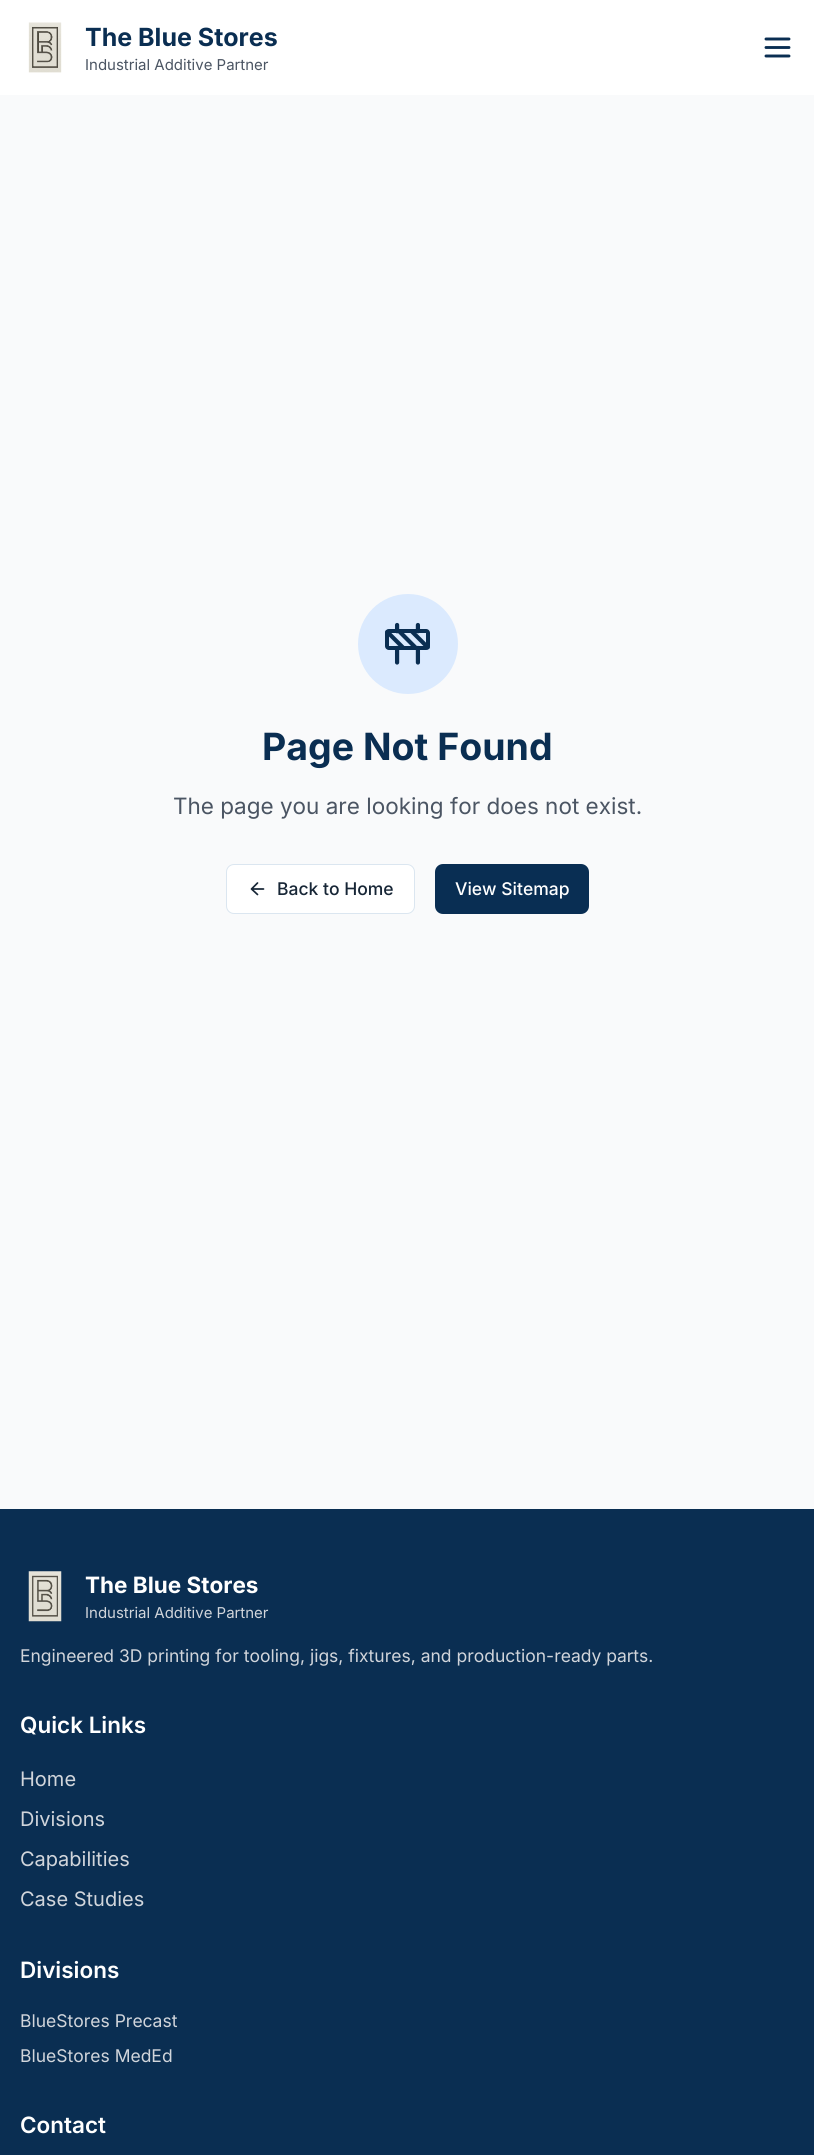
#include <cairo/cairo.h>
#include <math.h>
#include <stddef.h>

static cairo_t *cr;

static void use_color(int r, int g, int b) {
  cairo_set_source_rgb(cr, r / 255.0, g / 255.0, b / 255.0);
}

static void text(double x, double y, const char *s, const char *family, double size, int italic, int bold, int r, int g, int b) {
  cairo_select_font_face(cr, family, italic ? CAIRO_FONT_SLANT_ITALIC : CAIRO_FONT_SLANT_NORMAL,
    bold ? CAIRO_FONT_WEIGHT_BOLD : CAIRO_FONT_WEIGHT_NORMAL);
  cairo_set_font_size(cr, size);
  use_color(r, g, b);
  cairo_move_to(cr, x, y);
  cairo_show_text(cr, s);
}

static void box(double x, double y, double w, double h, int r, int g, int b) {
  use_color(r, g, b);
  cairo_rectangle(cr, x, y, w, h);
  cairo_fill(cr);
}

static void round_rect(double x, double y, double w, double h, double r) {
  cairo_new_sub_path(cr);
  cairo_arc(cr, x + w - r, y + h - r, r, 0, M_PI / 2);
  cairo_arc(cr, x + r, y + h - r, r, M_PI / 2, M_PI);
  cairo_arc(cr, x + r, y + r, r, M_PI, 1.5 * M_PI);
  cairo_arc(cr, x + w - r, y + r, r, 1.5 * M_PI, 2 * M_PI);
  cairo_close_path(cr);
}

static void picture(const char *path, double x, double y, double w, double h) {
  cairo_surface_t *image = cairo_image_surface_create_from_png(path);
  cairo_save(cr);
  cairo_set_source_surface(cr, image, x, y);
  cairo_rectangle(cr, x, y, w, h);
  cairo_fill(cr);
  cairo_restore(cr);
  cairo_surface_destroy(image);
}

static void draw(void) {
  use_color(249, 250, 251);
  cairo_paint(cr);
  box(0, 0, 814, 95, 255, 255, 255);
  picture("img_01.png", 28, 22, 34, 51);
  cairo_new_path(cr);
  cairo_move_to(cr, 766, 47.5);
  cairo_line_to(cr, 789, 47.5);
  cairo_move_to(cr, 766, 39);
  cairo_line_to(cr, 789, 39);
  cairo_move_to(cr, 766, 56);
  cairo_line_to(cr, 789, 56);
  use_color(10, 46, 82);
  cairo_set_line_width(cr, 2.9);
  cairo_set_line_cap(cr, CAIRO_LINE_CAP_ROUND);
  cairo_set_line_join(cr, CAIRO_LINE_JOIN_ROUND);
  cairo_stroke(cr);
  use_color(219, 234, 254);
  cairo_arc(cr, 408, 644, 50, 0, 2 * M_PI);
  cairo_fill(cr);
  picture("img_02.png", 385, 622, 45, 43);
  use_color(255, 255, 255);
  round_rect(226.5, 864.5, 188, 49, 7.5);
  cairo_fill_preserve(cr);
  use_color(219, 230, 240);
  cairo_set_line_width(cr, 1);
  cairo_set_line_cap(cr, CAIRO_LINE_CAP_BUTT);
  cairo_set_line_join(cr, CAIRO_LINE_JOIN_MITER);
  cairo_stroke(cr);
  cairo_new_path(cr);
  cairo_move_to(cr, 257.5, 894.5);
  cairo_line_to(cr, 251.5, 889);
  cairo_line_to(cr, 257.5, 883);
  cairo_move_to(cr, 263.5, 889);
  cairo_line_to(cr, 251.5, 889);
  use_color(23, 38, 54);
  cairo_set_line_width(cr, 1.7);
  cairo_set_line_cap(cr, CAIRO_LINE_CAP_ROUND);
  cairo_set_line_join(cr, CAIRO_LINE_JOIN_ROUND);
  cairo_stroke(cr);
  use_color(9, 46, 83);
  round_rect(435, 864, 154, 50, 8);
  cairo_fill(cr);
  box(0, 1509, 814, 646, 10, 46, 82);
  picture("img_03.png", 28, 1571, 34, 51);
  text(85, 46, "The Blue Stores", "Inter", 25, 0, 1, 10, 46, 82);
  text(85, 70, "Industrial Additive Partner", "Inter", 15, 0, 0, 75, 85, 99);
  text(262, 760, "Page Not Found", "Inter", 37.5, 0, 1, 10, 46, 82);
  text(173, 814, "The page you are looking for does not exist.", "Inter", 22.5, 0, 0, 75, 85, 99);
  text(277, 895, "Back to Home", "Inter Medium", 17.5, 0, 0, 23, 38, 54);
  text(455, 895, "View Sitemap", "Inter Medium", 17.5, 0, 0, 255, 255, 255);
  text(85, 1593, "The Blue Stores", "Inter", 22.5, 0, 1, 255, 255, 255);
  text(85, 1618, "Industrial Additive Partner", "Inter", 15, 0, 0, 209, 213, 219);
  text(20, 1662, "Engineered 3D printing for tooling, jigs, fixtures, and production-ready parts.", "Inter", 17.5, 0, 0, 209, 213, 219);
  text(20, 1733, "Quick Links", "Inter SemiBold", 22.5, 0, 0, 255, 255, 255);
  text(20, 1786, "Home", "Inter", 20, 0, 0, 209, 213, 219);
  text(20, 1826, "Divisions", "Inter", 20, 0, 0, 209, 213, 219);
  text(20, 1866, "Capabilities", "Inter", 20, 0, 0, 209, 213, 219);
  text(20, 1906, "Case Studies", "Inter", 20, 0, 0, 209, 213, 219);
  text(20, 1978, "Divisions", "Inter SemiBold", 22.5, 0, 0, 255, 255, 255);
  text(20, 2027, "BlueStores Precast", "Inter", 17.5, 0, 0, 209, 213, 219);
  text(20, 2062, "BlueStores MedEd", "Inter", 17.5, 0, 0, 209, 213, 219);
  text(20, 2133, "Contact", "Inter SemiBold", 22.5, 0, 0, 255, 255, 255);
}

int main(void) {
  cairo_surface_t *surface = cairo_image_surface_create(CAIRO_FORMAT_RGB24, 814, 2155);
  cr = cairo_create(surface);
  cairo_font_options_t *options = cairo_font_options_create();
  cairo_font_options_set_hint_metrics(options, CAIRO_HINT_METRICS_OFF);
  cairo_font_options_set_hint_style(options, CAIRO_HINT_STYLE_NONE);
  cairo_set_font_options(cr, options);
  cairo_set_miter_limit(cr, 4);
  draw();
  cairo_surface_write_to_png(surface, "out.png");
  cairo_font_options_destroy(options);
  cairo_destroy(cr);
  cairo_surface_destroy(surface);
  return 0;
}
